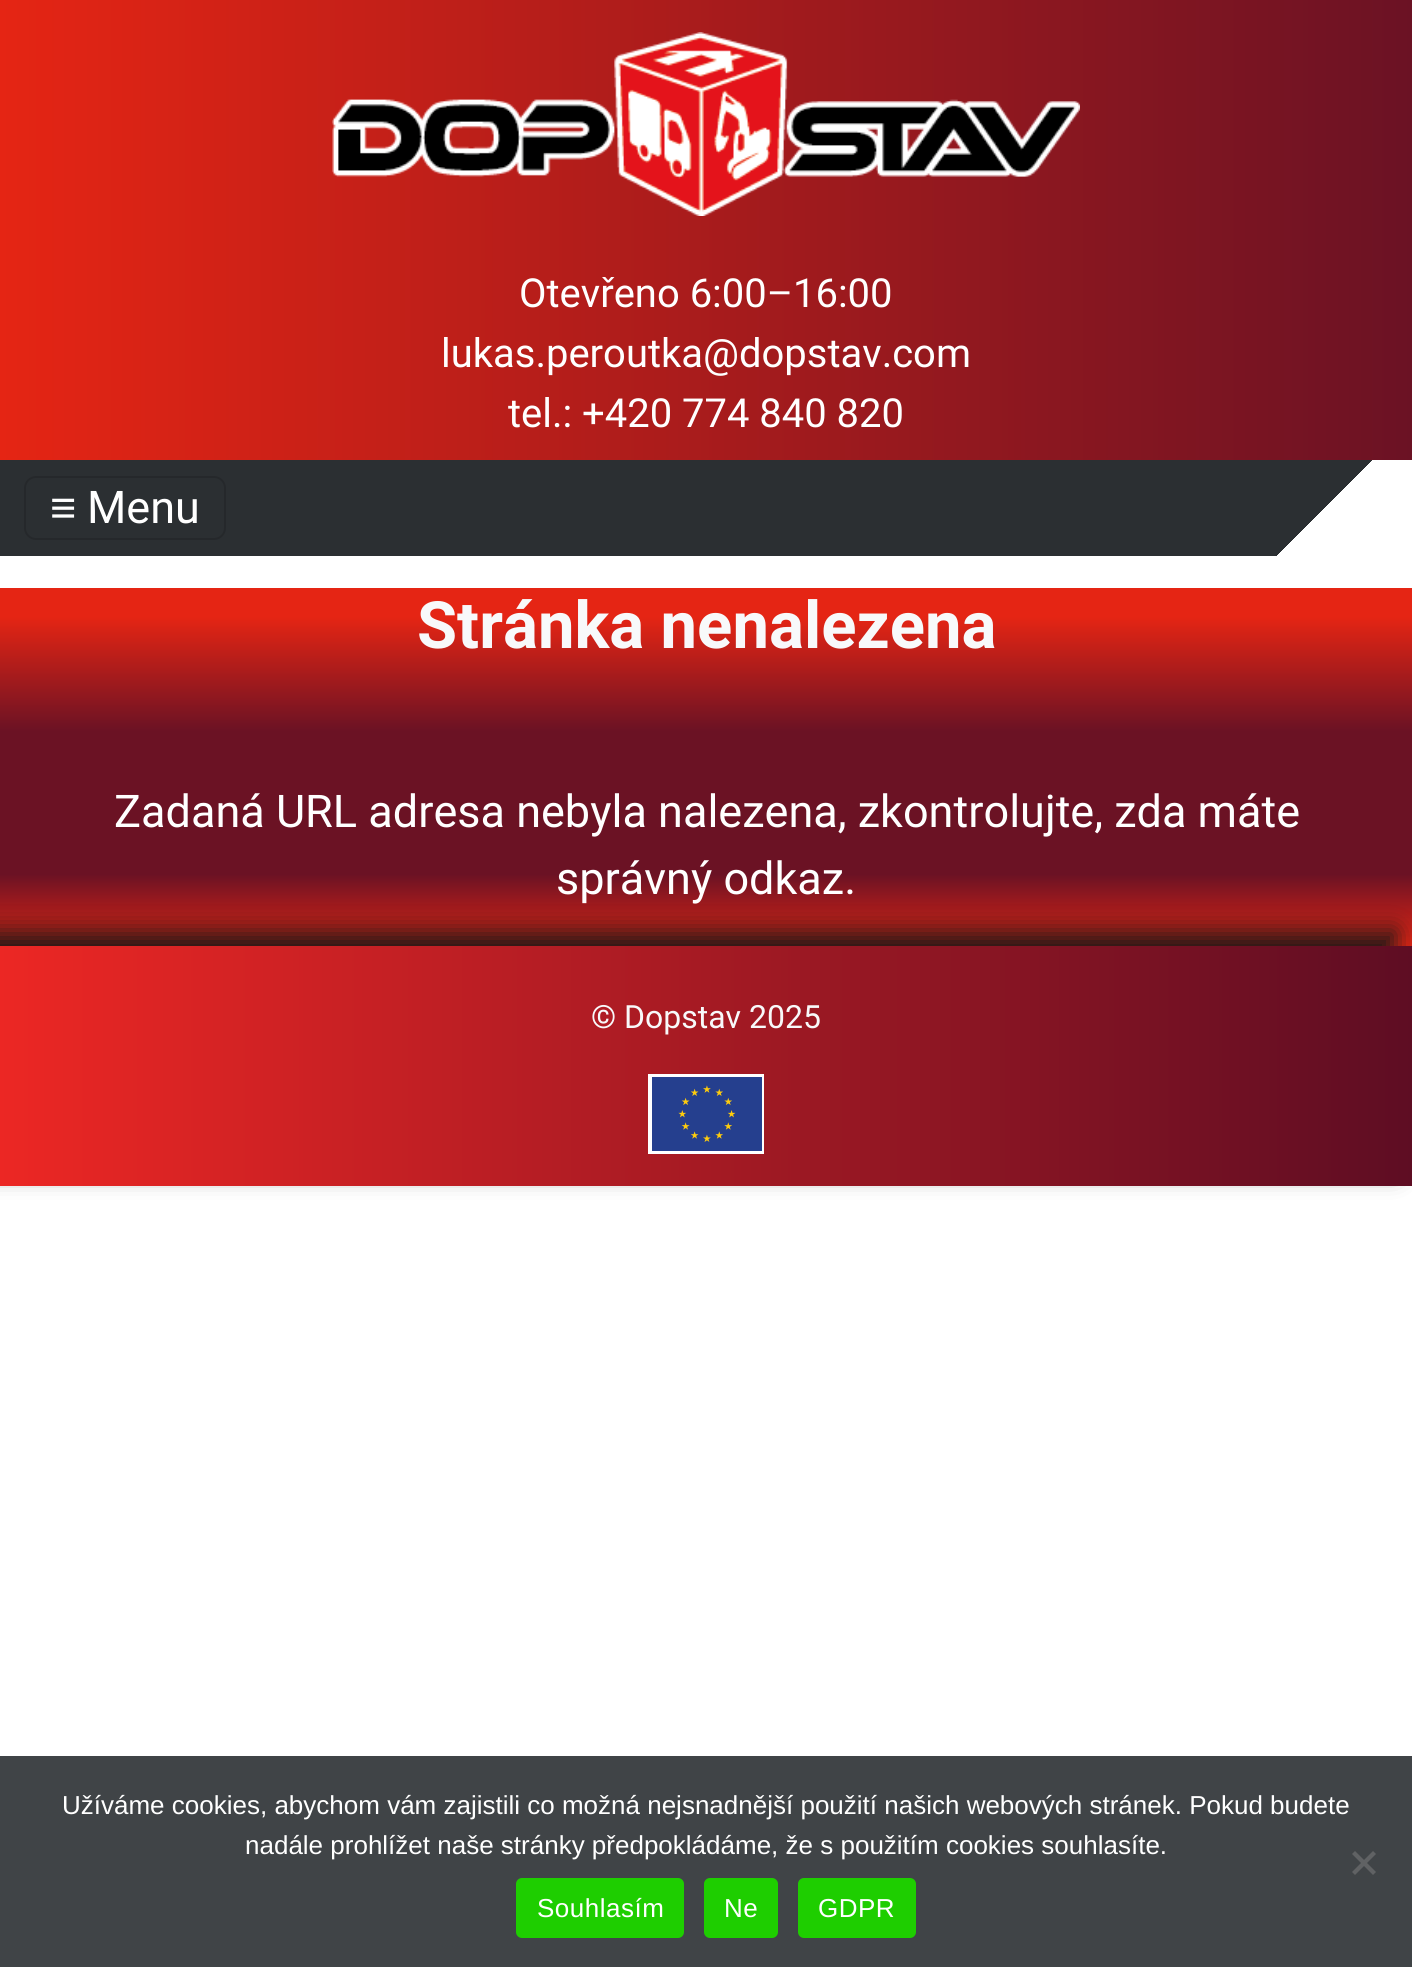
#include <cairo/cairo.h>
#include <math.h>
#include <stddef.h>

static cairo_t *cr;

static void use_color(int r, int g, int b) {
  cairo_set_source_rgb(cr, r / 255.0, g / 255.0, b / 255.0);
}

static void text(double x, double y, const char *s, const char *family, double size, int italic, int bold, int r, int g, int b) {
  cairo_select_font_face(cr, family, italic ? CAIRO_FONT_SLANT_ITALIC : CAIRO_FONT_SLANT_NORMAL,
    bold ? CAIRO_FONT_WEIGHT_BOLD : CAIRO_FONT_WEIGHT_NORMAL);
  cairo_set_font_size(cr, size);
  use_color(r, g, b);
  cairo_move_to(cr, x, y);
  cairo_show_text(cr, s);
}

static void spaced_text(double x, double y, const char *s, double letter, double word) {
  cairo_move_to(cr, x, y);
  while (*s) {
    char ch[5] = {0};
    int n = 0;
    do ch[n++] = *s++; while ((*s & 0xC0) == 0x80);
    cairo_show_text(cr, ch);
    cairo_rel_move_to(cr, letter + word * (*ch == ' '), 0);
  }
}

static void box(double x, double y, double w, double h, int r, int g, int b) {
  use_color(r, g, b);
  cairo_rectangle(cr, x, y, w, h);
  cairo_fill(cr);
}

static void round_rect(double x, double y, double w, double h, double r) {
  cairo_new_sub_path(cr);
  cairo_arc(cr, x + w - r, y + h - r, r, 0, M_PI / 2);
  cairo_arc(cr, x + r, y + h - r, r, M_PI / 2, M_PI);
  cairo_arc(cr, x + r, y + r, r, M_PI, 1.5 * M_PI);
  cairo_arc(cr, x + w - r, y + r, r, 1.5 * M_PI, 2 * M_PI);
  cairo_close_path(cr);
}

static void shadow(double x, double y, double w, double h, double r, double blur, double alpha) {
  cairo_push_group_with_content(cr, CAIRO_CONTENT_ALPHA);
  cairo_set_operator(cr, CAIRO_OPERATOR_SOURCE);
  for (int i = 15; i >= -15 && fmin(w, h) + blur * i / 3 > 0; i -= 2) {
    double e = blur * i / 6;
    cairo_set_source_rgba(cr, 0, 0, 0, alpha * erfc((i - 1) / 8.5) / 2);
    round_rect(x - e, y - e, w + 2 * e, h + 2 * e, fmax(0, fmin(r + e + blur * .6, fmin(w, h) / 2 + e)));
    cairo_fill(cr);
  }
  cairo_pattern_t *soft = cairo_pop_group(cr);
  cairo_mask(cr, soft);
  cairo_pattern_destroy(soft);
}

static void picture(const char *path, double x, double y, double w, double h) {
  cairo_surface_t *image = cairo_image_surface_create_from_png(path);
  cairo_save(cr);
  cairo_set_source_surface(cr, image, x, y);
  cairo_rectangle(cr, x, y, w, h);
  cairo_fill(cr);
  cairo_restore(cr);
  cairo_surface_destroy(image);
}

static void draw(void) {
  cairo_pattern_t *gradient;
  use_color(255, 255, 255);
  cairo_paint(cr);
  gradient = cairo_pattern_create_linear(0, 230, 1412, 230);
  cairo_pattern_add_color_stop_rgba(gradient, 0, 0.898, 0.145, 0.078, 1);
  cairo_pattern_add_color_stop_rgba(gradient, 1, 0.42, 0.071, 0.141, 1);
  cairo_set_source(cr, gradient);
  cairo_pattern_destroy(gradient);
  cairo_rectangle(cr, 0, 0, 1412, 460);
  cairo_fill(cr);
  picture("img_01.png", 332, 32, 748, 184);
  gradient = cairo_pattern_create_linear(329, 131, 1083, 885);
  cairo_pattern_add_color_stop_rgba(gradient, 0, 0.169, 0.184, 0.196, 1);
  cairo_pattern_add_color_stop_rgba(gradient, 0.91, 0.169, 0.184, 0.196, 1);
  cairo_pattern_add_color_stop_rgba(gradient, 0.91, 1, 1, 1, 1);
  cairo_set_source(cr, gradient);
  cairo_pattern_destroy(gradient);
  cairo_rectangle(cr, 0, 460, 1372, 96);
  cairo_fill(cr);
  round_rect(25, 477, 200, 62, 11);
  use_color(37, 40, 43);
  cairo_stroke(cr);
  gradient = cairo_pattern_create_linear(706, 588, 706, 946);
  cairo_pattern_add_color_stop_rgba(gradient, 0, 0.898, 0.145, 0.078, 1);
  cairo_pattern_add_color_stop_rgba(gradient, 0.08, 0.898, 0.145, 0.078, 1);
  cairo_pattern_add_color_stop_rgba(gradient, 0.4, 0.42, 0.071, 0.141, 1);
  cairo_pattern_add_color_stop_rgba(gradient, 0.8, 0.42, 0.071, 0.141, 1);
  cairo_pattern_add_color_stop_rgba(gradient, 1, 0.898, 0.145, 0.078, 1);
  cairo_set_source(cr, gradient);
  cairo_pattern_destroy(gradient);
  cairo_rectangle(cr, 0, 588, 1412, 358);
  cairo_fill(cr);
  use_color(23, 23, 23);
  shadow(-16, 930, 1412, 240, 0, 12, 0.93);
  gradient = cairo_pattern_create_linear(0, 1066, 1412, 1066);
  cairo_pattern_add_color_stop_rgba(gradient, 0, 0.925, 0.153, 0.141, 1);
  cairo_pattern_add_color_stop_rgba(gradient, 1, 0.369, 0.051, 0.137, 1);
  cairo_set_source(cr, gradient);
  cairo_pattern_destroy(gradient);
  cairo_rectangle(cr, 0, 946, 1412, 240);
  cairo_fill(cr);
  picture("img_02.png", 648, 1074, 116, 80);
  box(0, 1756, 1412, 211, 64, 68, 71);
  use_color(96, 98, 100);
  cairo_new_path(cr);
  cairo_move_to(cr, 1373, 1851);
  cairo_line_to(cr, 1376, 1854);
  cairo_line_to(cr, 1355, 1875);
  cairo_line_to(cr, 1352, 1872);
  cairo_close_path(cr);
  cairo_fill(cr);
  cairo_new_path(cr);
  cairo_move_to(cr, 1352, 1854);
  cairo_line_to(cr, 1355, 1851);
  cairo_line_to(cr, 1376, 1872);
  cairo_line_to(cr, 1373, 1875);
  cairo_close_path(cr);
  cairo_fill(cr);
  use_color(30, 206, 0);
  round_rect(516, 1878, 168, 60, 6);
  cairo_fill(cr);
  round_rect(704, 1878, 74, 60, 6);
  cairo_fill(cr);
  round_rect(798, 1878, 118, 60, 6);
  cairo_fill(cr);
  text(519, 307, "Otevřeno 6:00–16:00", "Roboto", 40, 0, 0, 255, 255, 255);
  text(441, 367, "lukas.peroutka@dopstav.com", "Roboto", 40, 0, 0, 255, 255, 255);
  text(508, 427, "tel.: +420 774 840 820", "Roboto", 40, 0, 0, 255, 255, 255);
  text(50, 523, "≡", "Liberation Sans", 45.05, 0, 0, 255, 255, 255);
  text(87, 523, "Menu", "Roboto", 45.05, 0, 0, 255, 255, 255);
  text(417, 648, "Stránka nenalezena", "Roboto", 65.25, 0, 1, 248, 249, 250);
  text(114, 827, "Zadaná URL adresa nebyla nalezena, zkontrolujte, zda máte", "Roboto", 45.05, 0, 0, 255, 255, 255);
  text(556, 894, "správný odkaz.", "Roboto", 45.05, 0, 0, 255, 255, 255);
  text(591, 1028, "© Dopstav 2025", "Roboto", 32, 0, 0, 248, 249, 250);
  text(62, 1814, "Užíváme cookies, abychom vám zajistili co možná nejsnadnější použití našich webových stránek. Pokud budete", "Liberation Sans", 26, 0, 0, 255, 255, 255);
  text(245, 1854, "nadále prohlížet naše stránky předpokládáme, že s použitím cookies souhlasíte.", "Liberation Sans", 26, 0, 0, 255, 255, 255);
  spaced_text(537, 1917, "Souhlasím", 0.5, 0);
  spaced_text(724, 1917, "Ne", 0.5, 0);
  spaced_text(818, 1917, "GDPR", 0.5, 0);
}

int main(void) {
  cairo_surface_t *surface = cairo_image_surface_create(CAIRO_FORMAT_RGB24, 1412, 1967);
  cr = cairo_create(surface);
  cairo_font_options_t *options = cairo_font_options_create();
  cairo_font_options_set_hint_metrics(options, CAIRO_HINT_METRICS_OFF);
  cairo_font_options_set_hint_style(options, CAIRO_HINT_STYLE_NONE);
  cairo_set_font_options(cr, options);
  cairo_set_miter_limit(cr, 4);
  draw();
  cairo_surface_write_to_png(surface, "out.png");
  cairo_font_options_destroy(options);
  cairo_destroy(cr);
  cairo_surface_destroy(surface);
  return 0;
}
